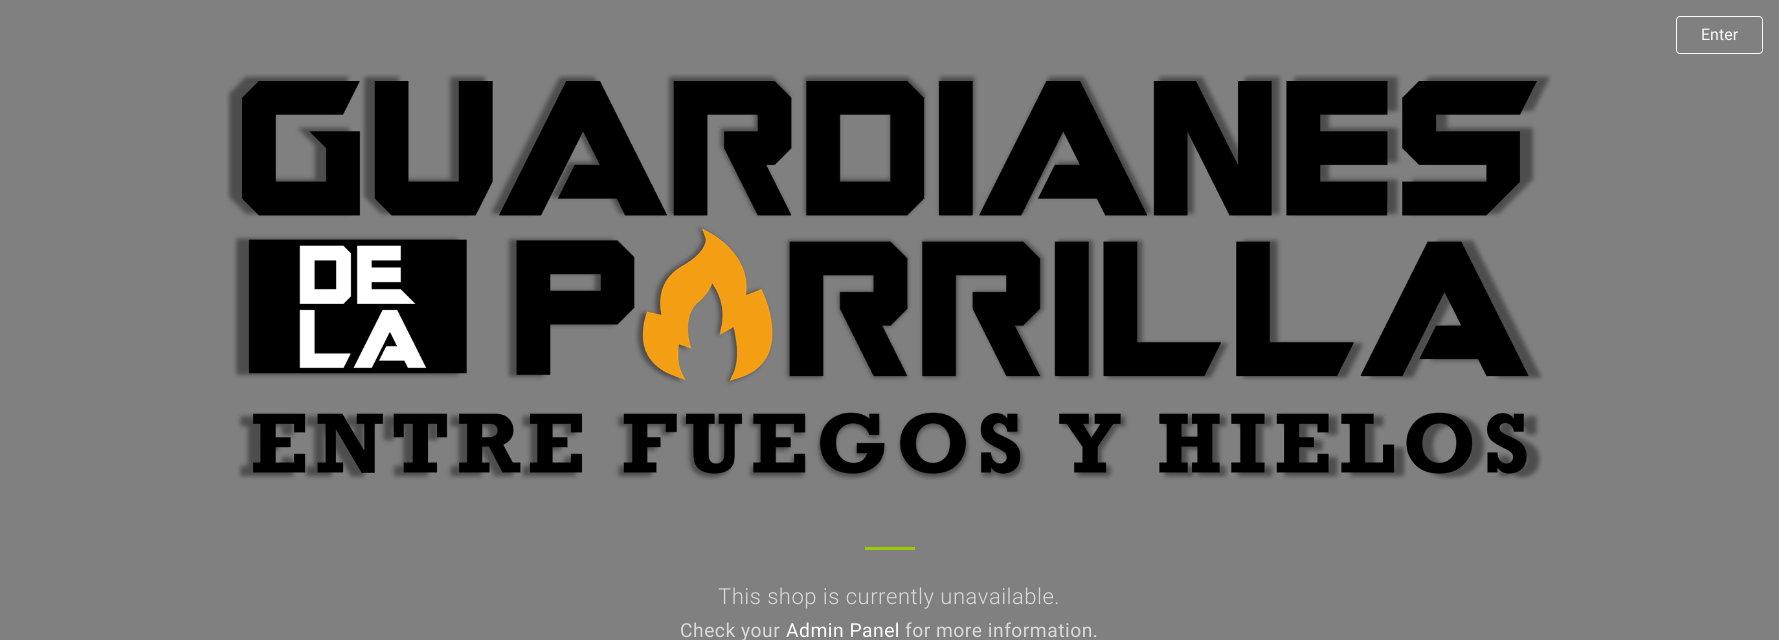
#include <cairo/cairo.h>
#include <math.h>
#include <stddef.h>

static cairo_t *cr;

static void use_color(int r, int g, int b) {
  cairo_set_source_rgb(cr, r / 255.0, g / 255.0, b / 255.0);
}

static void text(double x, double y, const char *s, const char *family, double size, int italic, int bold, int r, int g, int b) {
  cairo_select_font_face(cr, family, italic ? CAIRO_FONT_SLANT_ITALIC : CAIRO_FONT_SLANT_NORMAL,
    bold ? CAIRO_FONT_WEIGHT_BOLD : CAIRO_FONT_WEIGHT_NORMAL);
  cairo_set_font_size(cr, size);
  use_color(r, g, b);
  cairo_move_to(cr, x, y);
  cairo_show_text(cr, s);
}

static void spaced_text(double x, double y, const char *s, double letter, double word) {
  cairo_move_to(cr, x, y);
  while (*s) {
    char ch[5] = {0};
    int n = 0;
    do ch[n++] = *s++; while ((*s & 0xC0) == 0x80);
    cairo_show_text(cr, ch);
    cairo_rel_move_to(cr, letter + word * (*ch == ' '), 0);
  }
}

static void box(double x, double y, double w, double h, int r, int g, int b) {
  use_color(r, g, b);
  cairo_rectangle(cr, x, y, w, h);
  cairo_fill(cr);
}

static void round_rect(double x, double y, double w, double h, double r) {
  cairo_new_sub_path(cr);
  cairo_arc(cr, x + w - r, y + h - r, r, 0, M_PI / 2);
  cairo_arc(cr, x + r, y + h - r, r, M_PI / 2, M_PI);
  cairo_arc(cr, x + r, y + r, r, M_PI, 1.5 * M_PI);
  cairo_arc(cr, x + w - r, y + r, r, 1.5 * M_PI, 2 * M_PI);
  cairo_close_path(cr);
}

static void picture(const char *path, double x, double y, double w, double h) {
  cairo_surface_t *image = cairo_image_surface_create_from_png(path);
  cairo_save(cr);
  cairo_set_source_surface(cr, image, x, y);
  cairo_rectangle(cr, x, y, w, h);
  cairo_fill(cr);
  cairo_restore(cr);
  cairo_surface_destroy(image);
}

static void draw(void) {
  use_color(128, 128, 128);
  cairo_paint(cr);
  round_rect(1676.5, 16.5, 86, 37, 3.5);
  use_color(248, 249, 250);
  cairo_set_line_width(cr, 1);
  cairo_stroke(cr);
  picture("img_01.png", 226, 74, 1326, 406);
  box(865, 547, 50, 3, 153, 204, 0);
  text(1701, 40, "Enter", "Roboto", 16, 0, 0, 248, 249, 250);
  cairo_select_font_face(cr, "Roboto Light", CAIRO_FONT_SLANT_NORMAL, CAIRO_FONT_WEIGHT_NORMAL);
  cairo_set_font_size(cr, 22);
  use_color(217, 217, 217);
  spaced_text(718, 604, "This shop is currently unavailable.", 0.5, 0);
  cairo_select_font_face(cr, "Roboto", CAIRO_FONT_SLANT_NORMAL, CAIRO_FONT_WEIGHT_NORMAL);
  cairo_set_font_size(cr, 19.25);
  spaced_text(680, 637, "Check your", 0.5, 0);
  use_color(255, 255, 255);
  spaced_text(786, 637, "Admin Panel", 0.5, 0);
  use_color(217, 217, 217);
  spaced_text(905, 637, "for more information.", 0.5, 0);
}

int main(void) {
  cairo_surface_t *surface = cairo_image_surface_create(CAIRO_FORMAT_RGB24, 1779, 640);
  cr = cairo_create(surface);
  cairo_font_options_t *options = cairo_font_options_create();
  cairo_font_options_set_hint_metrics(options, CAIRO_HINT_METRICS_OFF);
  cairo_font_options_set_hint_style(options, CAIRO_HINT_STYLE_NONE);
  cairo_set_font_options(cr, options);
  cairo_set_miter_limit(cr, 4);
  draw();
  cairo_surface_write_to_png(surface, "out.png");
  cairo_font_options_destroy(options);
  cairo_destroy(cr);
  cairo_surface_destroy(surface);
  return 0;
}
